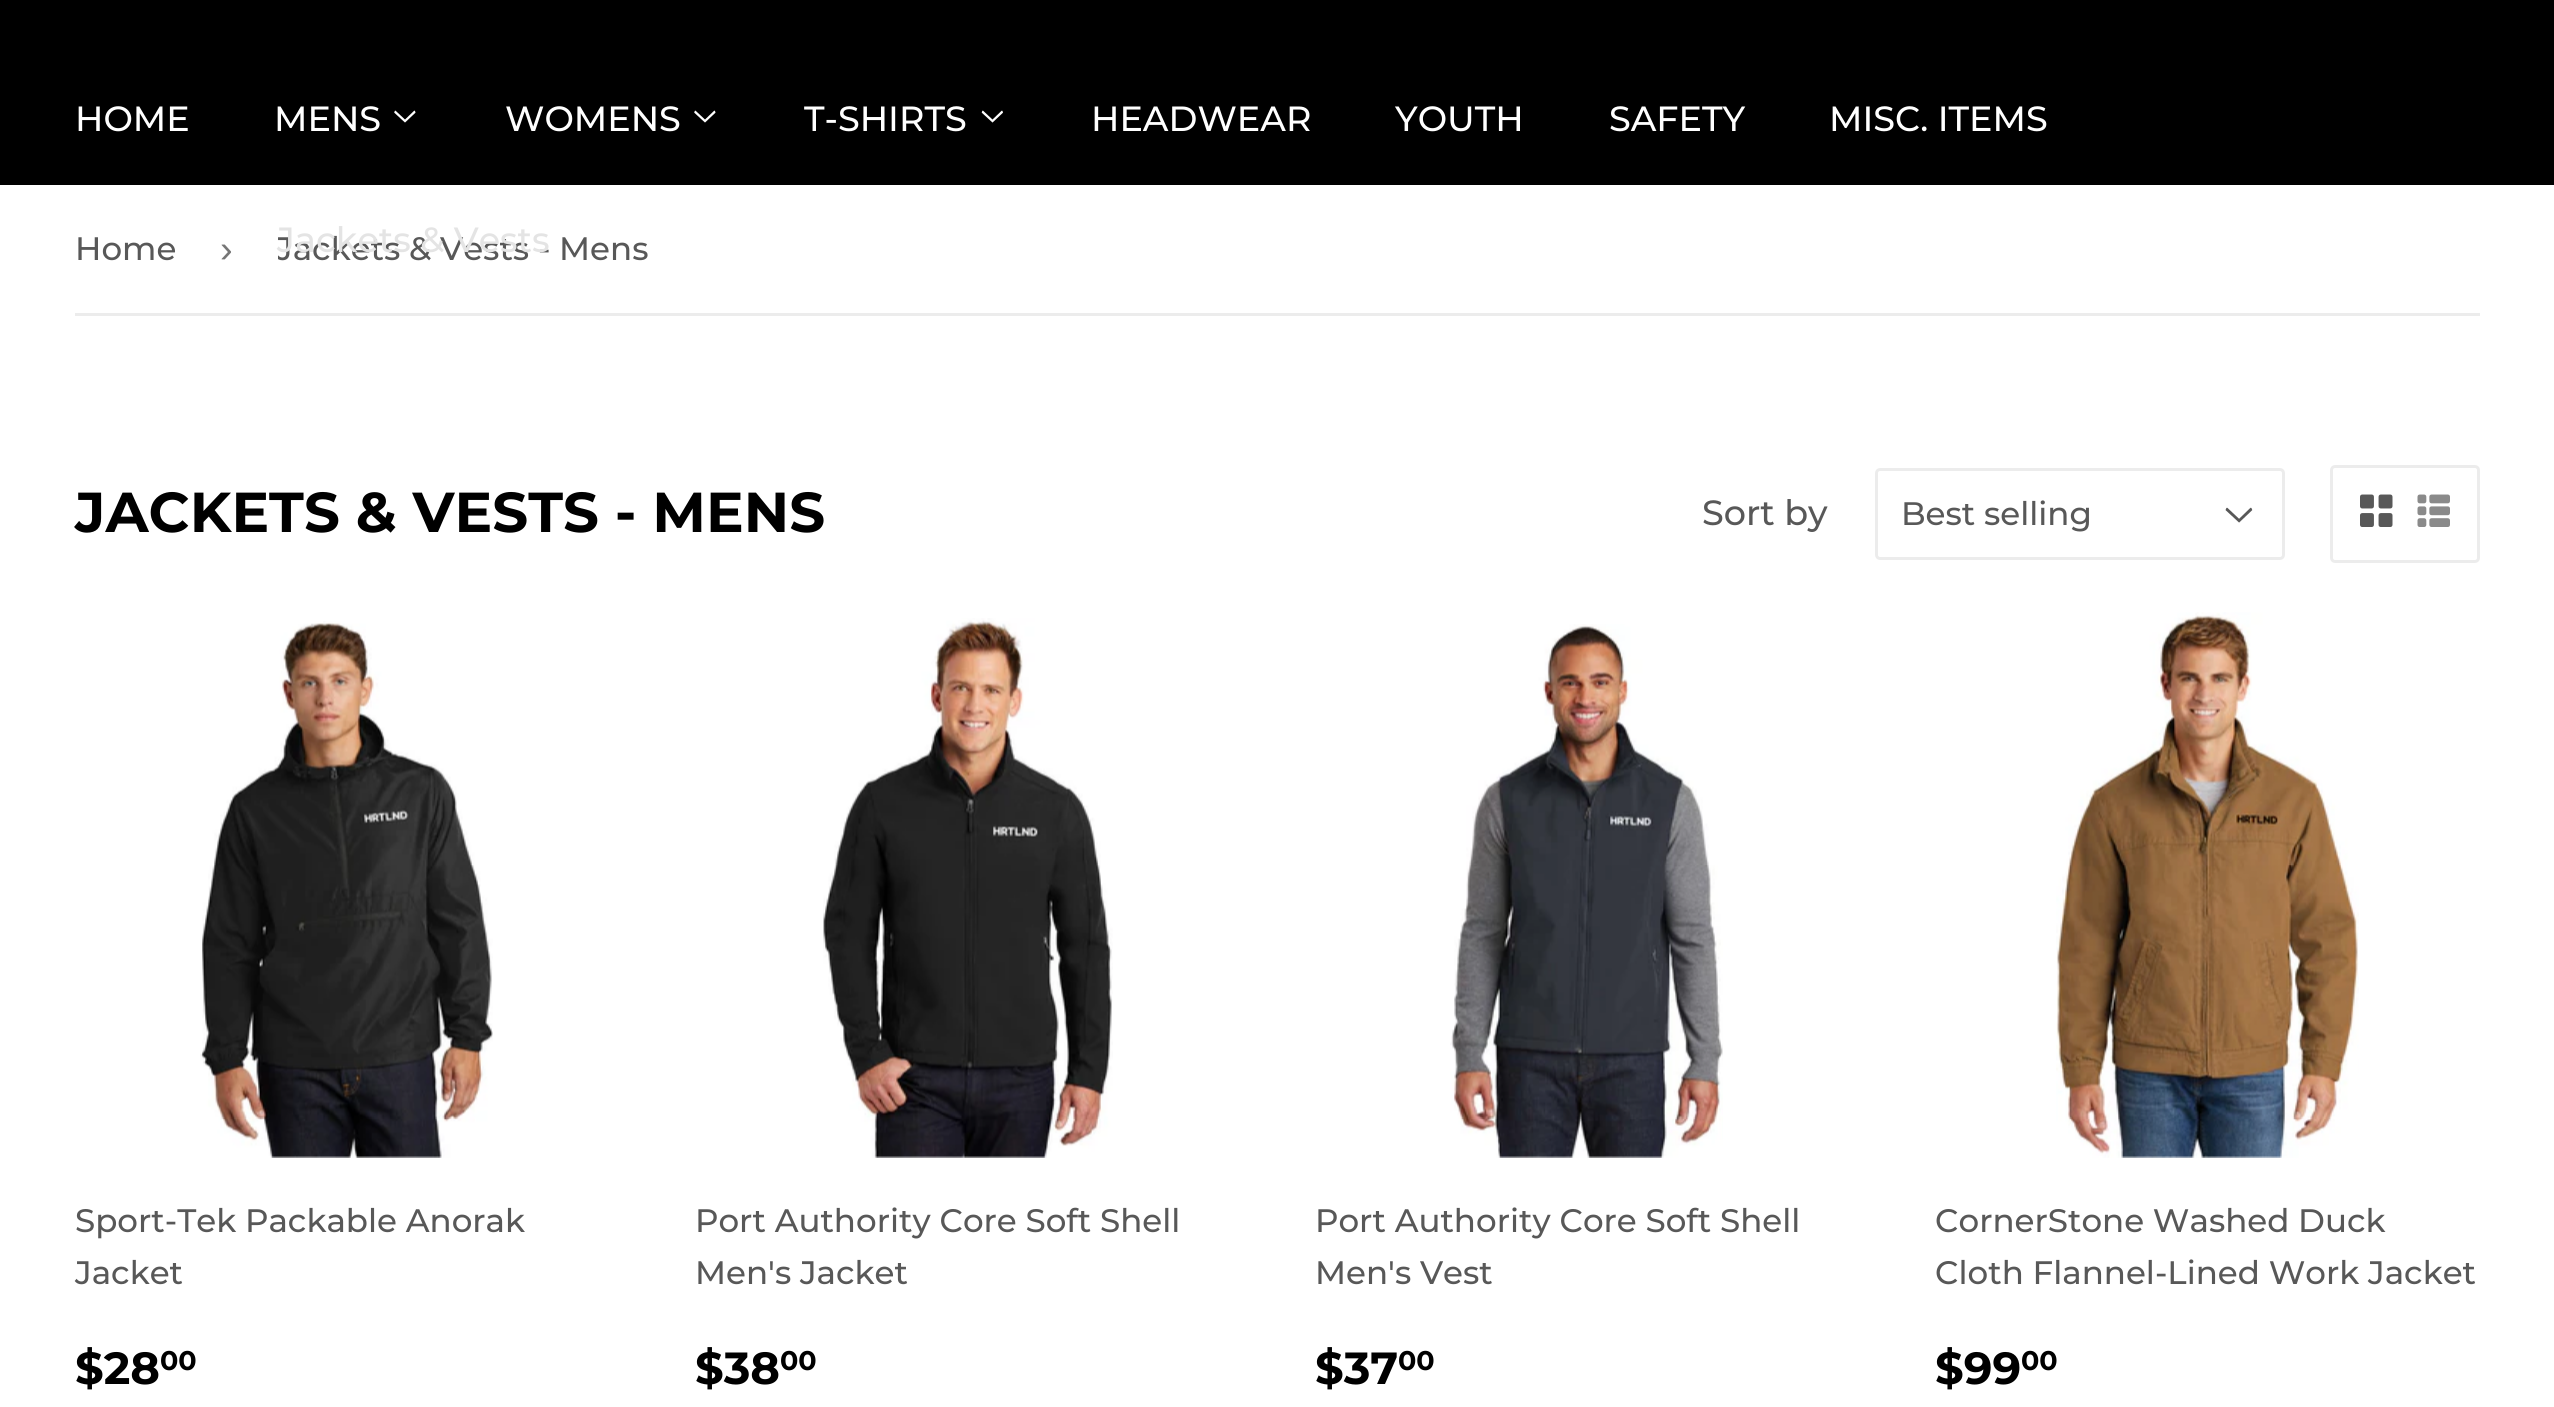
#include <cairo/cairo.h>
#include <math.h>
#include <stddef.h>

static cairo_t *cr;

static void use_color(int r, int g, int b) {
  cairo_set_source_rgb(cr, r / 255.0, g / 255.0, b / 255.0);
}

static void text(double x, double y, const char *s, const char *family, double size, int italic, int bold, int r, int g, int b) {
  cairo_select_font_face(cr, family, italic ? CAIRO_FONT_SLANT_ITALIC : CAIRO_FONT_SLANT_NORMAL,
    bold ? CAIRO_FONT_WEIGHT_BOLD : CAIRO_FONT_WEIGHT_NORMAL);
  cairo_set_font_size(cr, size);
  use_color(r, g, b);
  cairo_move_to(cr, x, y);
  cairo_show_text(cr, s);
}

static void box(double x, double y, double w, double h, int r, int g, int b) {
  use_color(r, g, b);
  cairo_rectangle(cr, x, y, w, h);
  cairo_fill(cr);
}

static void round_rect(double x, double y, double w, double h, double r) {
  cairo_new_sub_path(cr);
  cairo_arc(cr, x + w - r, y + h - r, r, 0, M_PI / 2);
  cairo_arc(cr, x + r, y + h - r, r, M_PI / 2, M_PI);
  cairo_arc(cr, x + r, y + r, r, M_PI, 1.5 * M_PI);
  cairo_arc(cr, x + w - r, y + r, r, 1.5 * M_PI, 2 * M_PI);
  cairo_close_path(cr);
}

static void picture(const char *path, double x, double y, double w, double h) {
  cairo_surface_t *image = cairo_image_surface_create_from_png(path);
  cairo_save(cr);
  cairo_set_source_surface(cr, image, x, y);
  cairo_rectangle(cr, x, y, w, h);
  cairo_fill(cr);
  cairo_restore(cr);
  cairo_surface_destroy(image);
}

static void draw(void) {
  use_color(255, 255, 255);
  cairo_paint(cr);
  box(0, 0, 2554, 185, 0, 0, 0);
  picture("img_01.png", 394, 110, 22, 13);
  picture("img_01.png", 694, 110, 22, 13);
  picture("img_02.png", 981, 110, 22, 13);
  box(75, 313, 2405, 3, 236, 236, 236);
  picture("img_03.png", 2225, 507, 28, 16);
  round_rect(1876.5, 469.5, 407, 89, 3.5);
  cairo_set_line_width(cr, 3);
  cairo_stroke(cr);
  round_rect(2331.5, 466.5, 147, 95, 3.5);
  cairo_stroke(cr);
  picture("img_04.png", 2360, 494, 33, 33);
  picture("img_05.png", 2417, 494, 33, 33);
  picture("img_06.png", 200, 621, 293, 537);
  picture("img_07.png", 823, 618, 290, 540);
  picture("img_08.png", 1450, 624, 273, 534);
  picture("img_09.png", 2056, 612, 303, 546);
  text(75, 131, "HOME", "Montserrat Medium", 35, 0, 0, 255, 255, 255);
  text(274, 131, "MENS", "Montserrat Medium", 35, 0, 0, 255, 255, 255);
  text(505, 131, "WOMENS", "Montserrat Medium", 35, 0, 0, 255, 255, 255);
  text(804, 131, "T-SHIRTS", "Montserrat Medium", 35, 0, 0, 255, 255, 255);
  text(1091, 131, "HEADWEAR", "Montserrat Medium", 35, 0, 0, 255, 255, 255);
  text(1395, 131, "YOUTH", "Montserrat Medium", 35, 0, 0, 255, 255, 255);
  text(1609, 131, "SAFETY", "Montserrat Medium", 35, 0, 0, 255, 255, 255);
  text(1829, 131, "MISC. ITEMS", "Montserrat Medium", 35, 0, 0, 255, 255, 255);
  text(75, 260, "Home", "Montserrat Medium", 32.5, 0, 0, 88, 88, 88);
  text(220, 262, "›", "Liberation Sans", 38, 0, 0, 118, 118, 118);
  cairo_save(cr);
  cairo_rectangle(cr, 278, 185, 387, 128);
  cairo_clip(cr);
  text(276, 260, "Jackets & Vests - Mens", "Montserrat Medium", 32.5, 0, 0, 88, 88, 88);
  cairo_restore(cr);
  text(277, 252, "Jackets & Vests", "Montserrat Medium", 35, 0, 0, 228, 228, 228);
  text(75, 532, "JACKETS & VESTS - MENS", "Montserrat", 56.25, 0, 1, 0, 0, 0);
  text(1702, 525, "Sort by", "Montserrat Medium", 35, 0, 0, 88, 88, 88);
  text(1901, 525, "Best selling", "Montserrat Medium", 32.5, 0, 0, 88, 88, 88);
  text(75, 1232, "Sport-Tek Packable Anorak", "Montserrat Medium", 32.5, 0, 0, 88, 88, 88);
  text(75, 1284, "Jacket", "Montserrat Medium", 32.5, 0, 0, 88, 88, 88);
  text(75, 1384, "$28", "Montserrat", 45, 0, 1, 0, 0, 0);
  text(160, 1370, "00", "Montserrat", 27, 0, 1, 0, 0, 0);
  text(695, 1232, "Port Authority Core Soft Shell", "Montserrat Medium", 32.5, 0, 0, 88, 88, 88);
  text(695, 1284, "Men's Jacket", "Montserrat Medium", 32.5, 0, 0, 88, 88, 88);
  text(695, 1384, "$38", "Montserrat", 45, 0, 1, 0, 0, 0);
  text(780, 1370, "00", "Montserrat", 27, 0, 1, 0, 0, 0);
  text(1315, 1232, "Port Authority Core Soft Shell", "Montserrat Medium", 32.5, 0, 0, 88, 88, 88);
  text(1315, 1284, "Men's Vest", "Montserrat Medium", 32.5, 0, 0, 88, 88, 88);
  text(1315, 1384, "$37", "Montserrat", 45, 0, 1, 0, 0, 0);
  text(1398, 1370, "00", "Montserrat", 27, 0, 1, 0, 0, 0);
  text(1935, 1232, "CornerStone Washed Duck", "Montserrat Medium", 32.5, 0, 0, 88, 88, 88);
  text(1935, 1284, "Cloth Flannel-Lined Work Jacket", "Montserrat Medium", 32.5, 0, 0, 88, 88, 88);
  text(1935, 1384, "$99", "Montserrat", 45, 0, 1, 0, 0, 0);
  text(2021, 1370, "00", "Montserrat", 27, 0, 1, 0, 0, 0);
}

int main(void) {
  cairo_surface_t *surface = cairo_image_surface_create(CAIRO_FORMAT_RGB24, 2554, 1407);
  cr = cairo_create(surface);
  cairo_font_options_t *options = cairo_font_options_create();
  cairo_font_options_set_hint_metrics(options, CAIRO_HINT_METRICS_OFF);
  cairo_font_options_set_hint_style(options, CAIRO_HINT_STYLE_NONE);
  cairo_set_font_options(cr, options);
  cairo_set_miter_limit(cr, 4);
  draw();
  cairo_surface_write_to_png(surface, "out.png");
  cairo_font_options_destroy(options);
  cairo_destroy(cr);
  cairo_surface_destroy(surface);
  return 0;
}
